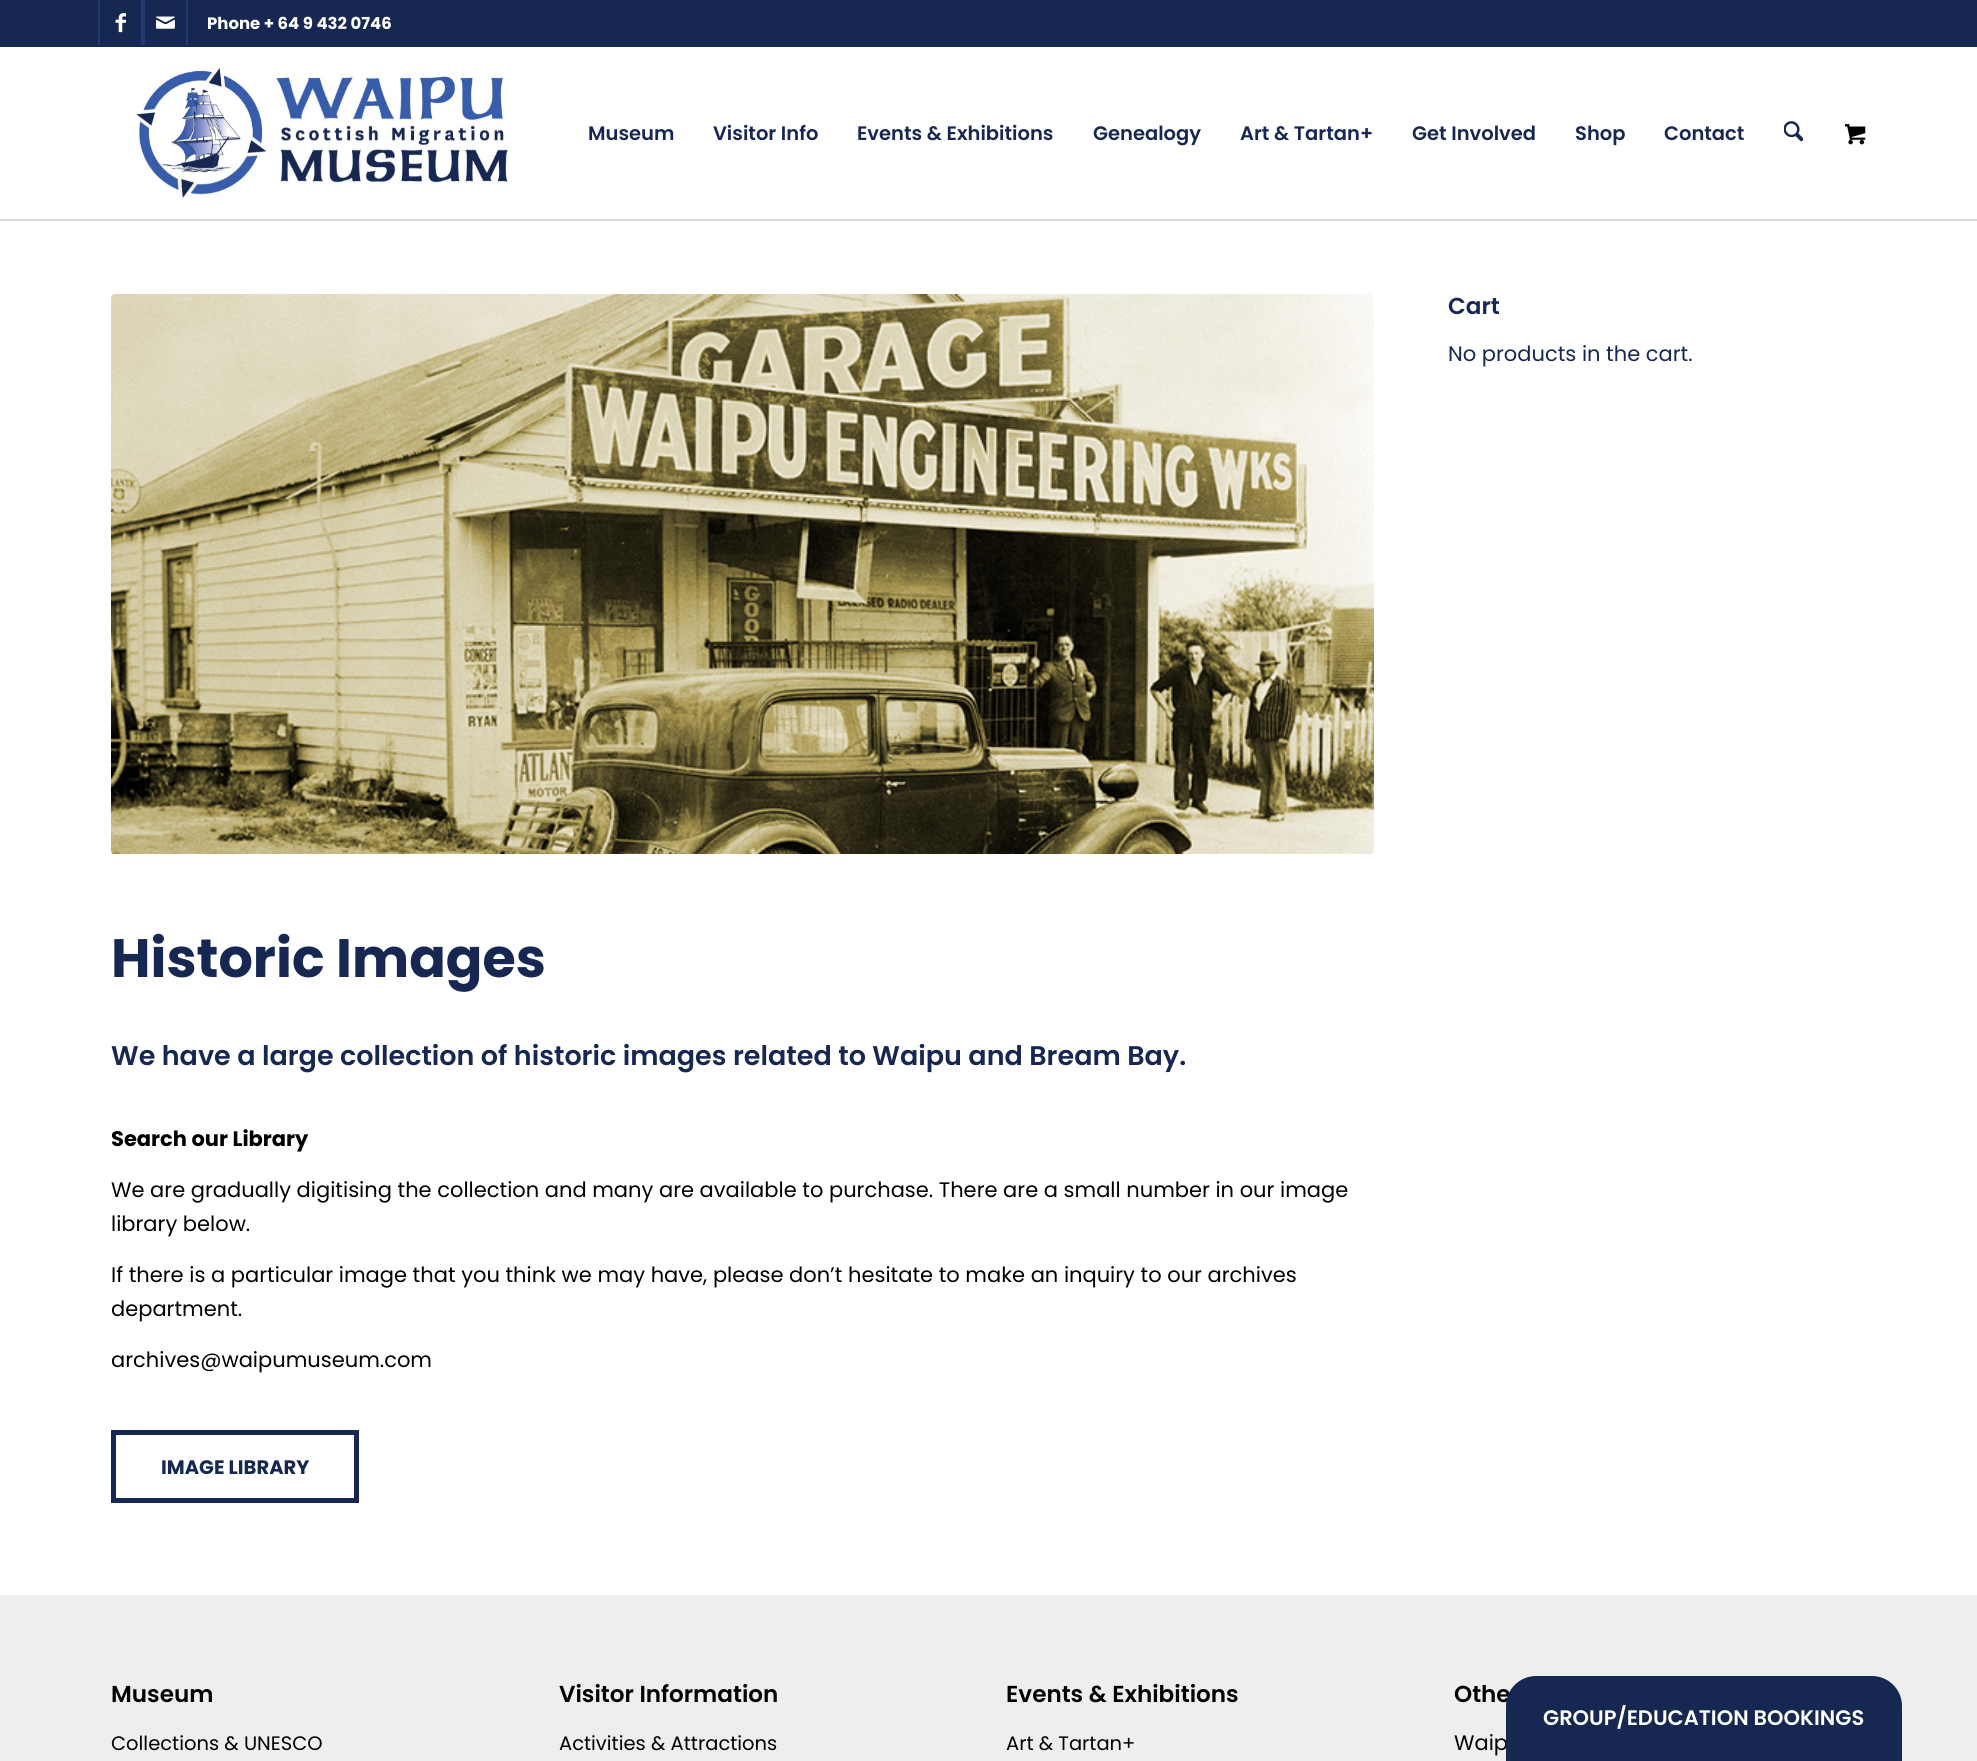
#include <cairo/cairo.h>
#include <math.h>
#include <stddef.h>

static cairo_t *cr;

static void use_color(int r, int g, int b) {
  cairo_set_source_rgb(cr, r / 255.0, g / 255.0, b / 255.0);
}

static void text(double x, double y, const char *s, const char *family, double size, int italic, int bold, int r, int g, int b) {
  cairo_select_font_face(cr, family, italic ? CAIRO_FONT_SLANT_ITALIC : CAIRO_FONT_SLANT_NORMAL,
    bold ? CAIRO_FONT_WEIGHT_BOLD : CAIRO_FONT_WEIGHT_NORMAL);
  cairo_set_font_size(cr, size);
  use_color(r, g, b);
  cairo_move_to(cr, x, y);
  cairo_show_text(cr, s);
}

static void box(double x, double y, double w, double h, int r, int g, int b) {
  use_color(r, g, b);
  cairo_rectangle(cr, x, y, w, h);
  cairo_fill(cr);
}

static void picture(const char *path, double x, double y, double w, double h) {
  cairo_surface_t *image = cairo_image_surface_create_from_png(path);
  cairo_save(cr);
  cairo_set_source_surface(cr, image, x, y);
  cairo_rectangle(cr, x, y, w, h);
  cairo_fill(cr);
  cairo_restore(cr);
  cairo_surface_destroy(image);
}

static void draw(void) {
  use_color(255, 255, 255);
  cairo_paint(cr);
  box(0, 0, 1977, 47, 22, 39, 82);
  box(141, 0, 4, 45, 37, 58, 113);
  box(98, 0, 2, 45, 37, 58, 113);
  picture("img_01.png", 115, 13, 11, 20);
  box(186, 0, 2, 45, 37, 58, 113);
  picture("img_02.png", 156, 16, 19, 13);
  box(0, 219, 1977, 2, 221, 221, 221);
  picture("img_03.png", 136, 68, 372, 131);
  picture("img_04.png", 1784, 121, 19, 21);
  picture("img_05.png", 1845, 124, 21, 21);
  picture("img_06.png", 111, 294, 1263, 560);
  cairo_rectangle(cr, 113.5, 1432.5, 243, 68);
  use_color(22, 39, 82);
  cairo_set_line_width(cr, 5);
  cairo_stroke(cr);
  box(0, 1595, 1977, 166, 238, 238, 238);
  text(207, 29, "Phone + 64 9 432 0746", "Poppins", 16.5, 0, 1, 255, 255, 255);
  text(588, 140, "Museum", "Poppins SemiBold", 19.5, 0, 0, 22, 39, 82);
  text(713, 140, "Visitor Info", "Poppins SemiBold", 19.5, 0, 0, 22, 39, 82);
  text(857, 140, "Events & Exhibitions", "Poppins SemiBold", 19.5, 0, 0, 22, 39, 82);
  text(1093, 140, "Genealogy", "Poppins SemiBold", 19.5, 0, 0, 22, 39, 82);
  text(1240, 140, "Art & Tartan+", "Poppins SemiBold", 19.5, 0, 0, 22, 39, 82);
  text(1412, 140, "Get Involved", "Poppins SemiBold", 19.5, 0, 0, 22, 39, 82);
  text(1575, 140, "Shop", "Poppins SemiBold", 19.5, 0, 0, 22, 39, 82);
  text(1664, 140, "Contact", "Poppins SemiBold", 19.5, 0, 0, 22, 39, 82);
  text(1448, 314, "Cart", "Poppins SemiBold", 23.1, 0, 0, 22, 39, 82);
  text(1448, 361, "No products in the cart.", "Poppins", 21, 0, 0, 22, 39, 82);
  text(111, 977, "Historic Images", "Poppins", 54, 0, 1, 22, 39, 82);
  text(111, 1065, "We have a large collection of historic images related to Waipu and Bream Bay.", "Poppins SemiBold", 27, 0, 0, 22, 39, 82);
  text(111, 1146, "Search our Library", "Poppins", 21, 0, 1, 0, 0, 0);
  text(111, 1197, "We are gradually digitising the collection and many are available to purchase. There are a small number in our image", "Poppins", 21, 0, 0, 0, 0, 0);
  text(111, 1231, "library below.", "Poppins", 21, 0, 0, 0, 0, 0);
  text(111, 1282, "If there is a particular image that you think we may have, please don’t hesitate to make an inquiry to our archives", "Poppins", 21, 0, 0, 0, 0, 0);
  text(111, 1316, "department.", "Poppins", 21, 0, 0, 0, 0, 0);
  text(111, 1367, "archives@waipumuseum.com", "Poppins", 21, 0, 0, 0, 0, 0);
  text(161, 1474, "IMAGE LIBRARY", "Poppins", 19.5, 0, 1, 22, 39, 82);
  text(111, 1702, "Museum", "Poppins SemiBold", 23.1, 0, 0, 0, 0, 0);
  text(111, 1750, "Collections & UNESCO", "Poppins", 19.5, 0, 0, 0, 0, 0);
  text(559, 1702, "Visitor Information", "Poppins SemiBold", 23.1, 0, 0, 0, 0, 0);
  text(559, 1750, "Activities & Attractions", "Poppins", 19.5, 0, 0, 0, 0, 0);
  text(1006, 1702, "Events & Exhibitions", "Poppins SemiBold", 23.1, 0, 0, 0, 0, 0);
  text(1006, 1750, "Art & Tartan+", "Poppins", 19.5, 0, 0, 0, 0, 0);
  text(1454, 1702, "Othe", "Poppins SemiBold", 23.1, 0, 0, 0, 0, 0);
  text(1454, 1750, "Waip", "Poppins", 21, 0, 0, 0, 0, 0);
  use_color(22, 39, 82);
  cairo_new_path(cr);
  cairo_move_to(cr, 1536, 1676);
  cairo_line_to(cr, 1872, 1676);
  cairo_curve_to(cr, 1888.5, 1676, 1902, 1689.5, 1902, 1706);
  cairo_line_to(cr, 1902, 1761);
  cairo_line_to(cr, 1506, 1761);
  cairo_line_to(cr, 1506, 1706);
  cairo_curve_to(cr, 1506, 1689.5, 1519.5, 1676, 1536, 1676);
  cairo_close_path(cr);
  cairo_fill(cr);
  text(1543, 1725, "GROUP/EDUCATION BOOKINGS", "Poppins SemiBold", 21, 0, 0, 255, 255, 255);
}

int main(void) {
  cairo_surface_t *surface = cairo_image_surface_create(CAIRO_FORMAT_RGB24, 1977, 1761);
  cr = cairo_create(surface);
  cairo_font_options_t *options = cairo_font_options_create();
  cairo_font_options_set_hint_metrics(options, CAIRO_HINT_METRICS_OFF);
  cairo_font_options_set_hint_style(options, CAIRO_HINT_STYLE_NONE);
  cairo_set_font_options(cr, options);
  cairo_set_miter_limit(cr, 4);
  draw();
  cairo_surface_write_to_png(surface, "out.png");
  cairo_font_options_destroy(options);
  cairo_destroy(cr);
  cairo_surface_destroy(surface);
  return 0;
}
